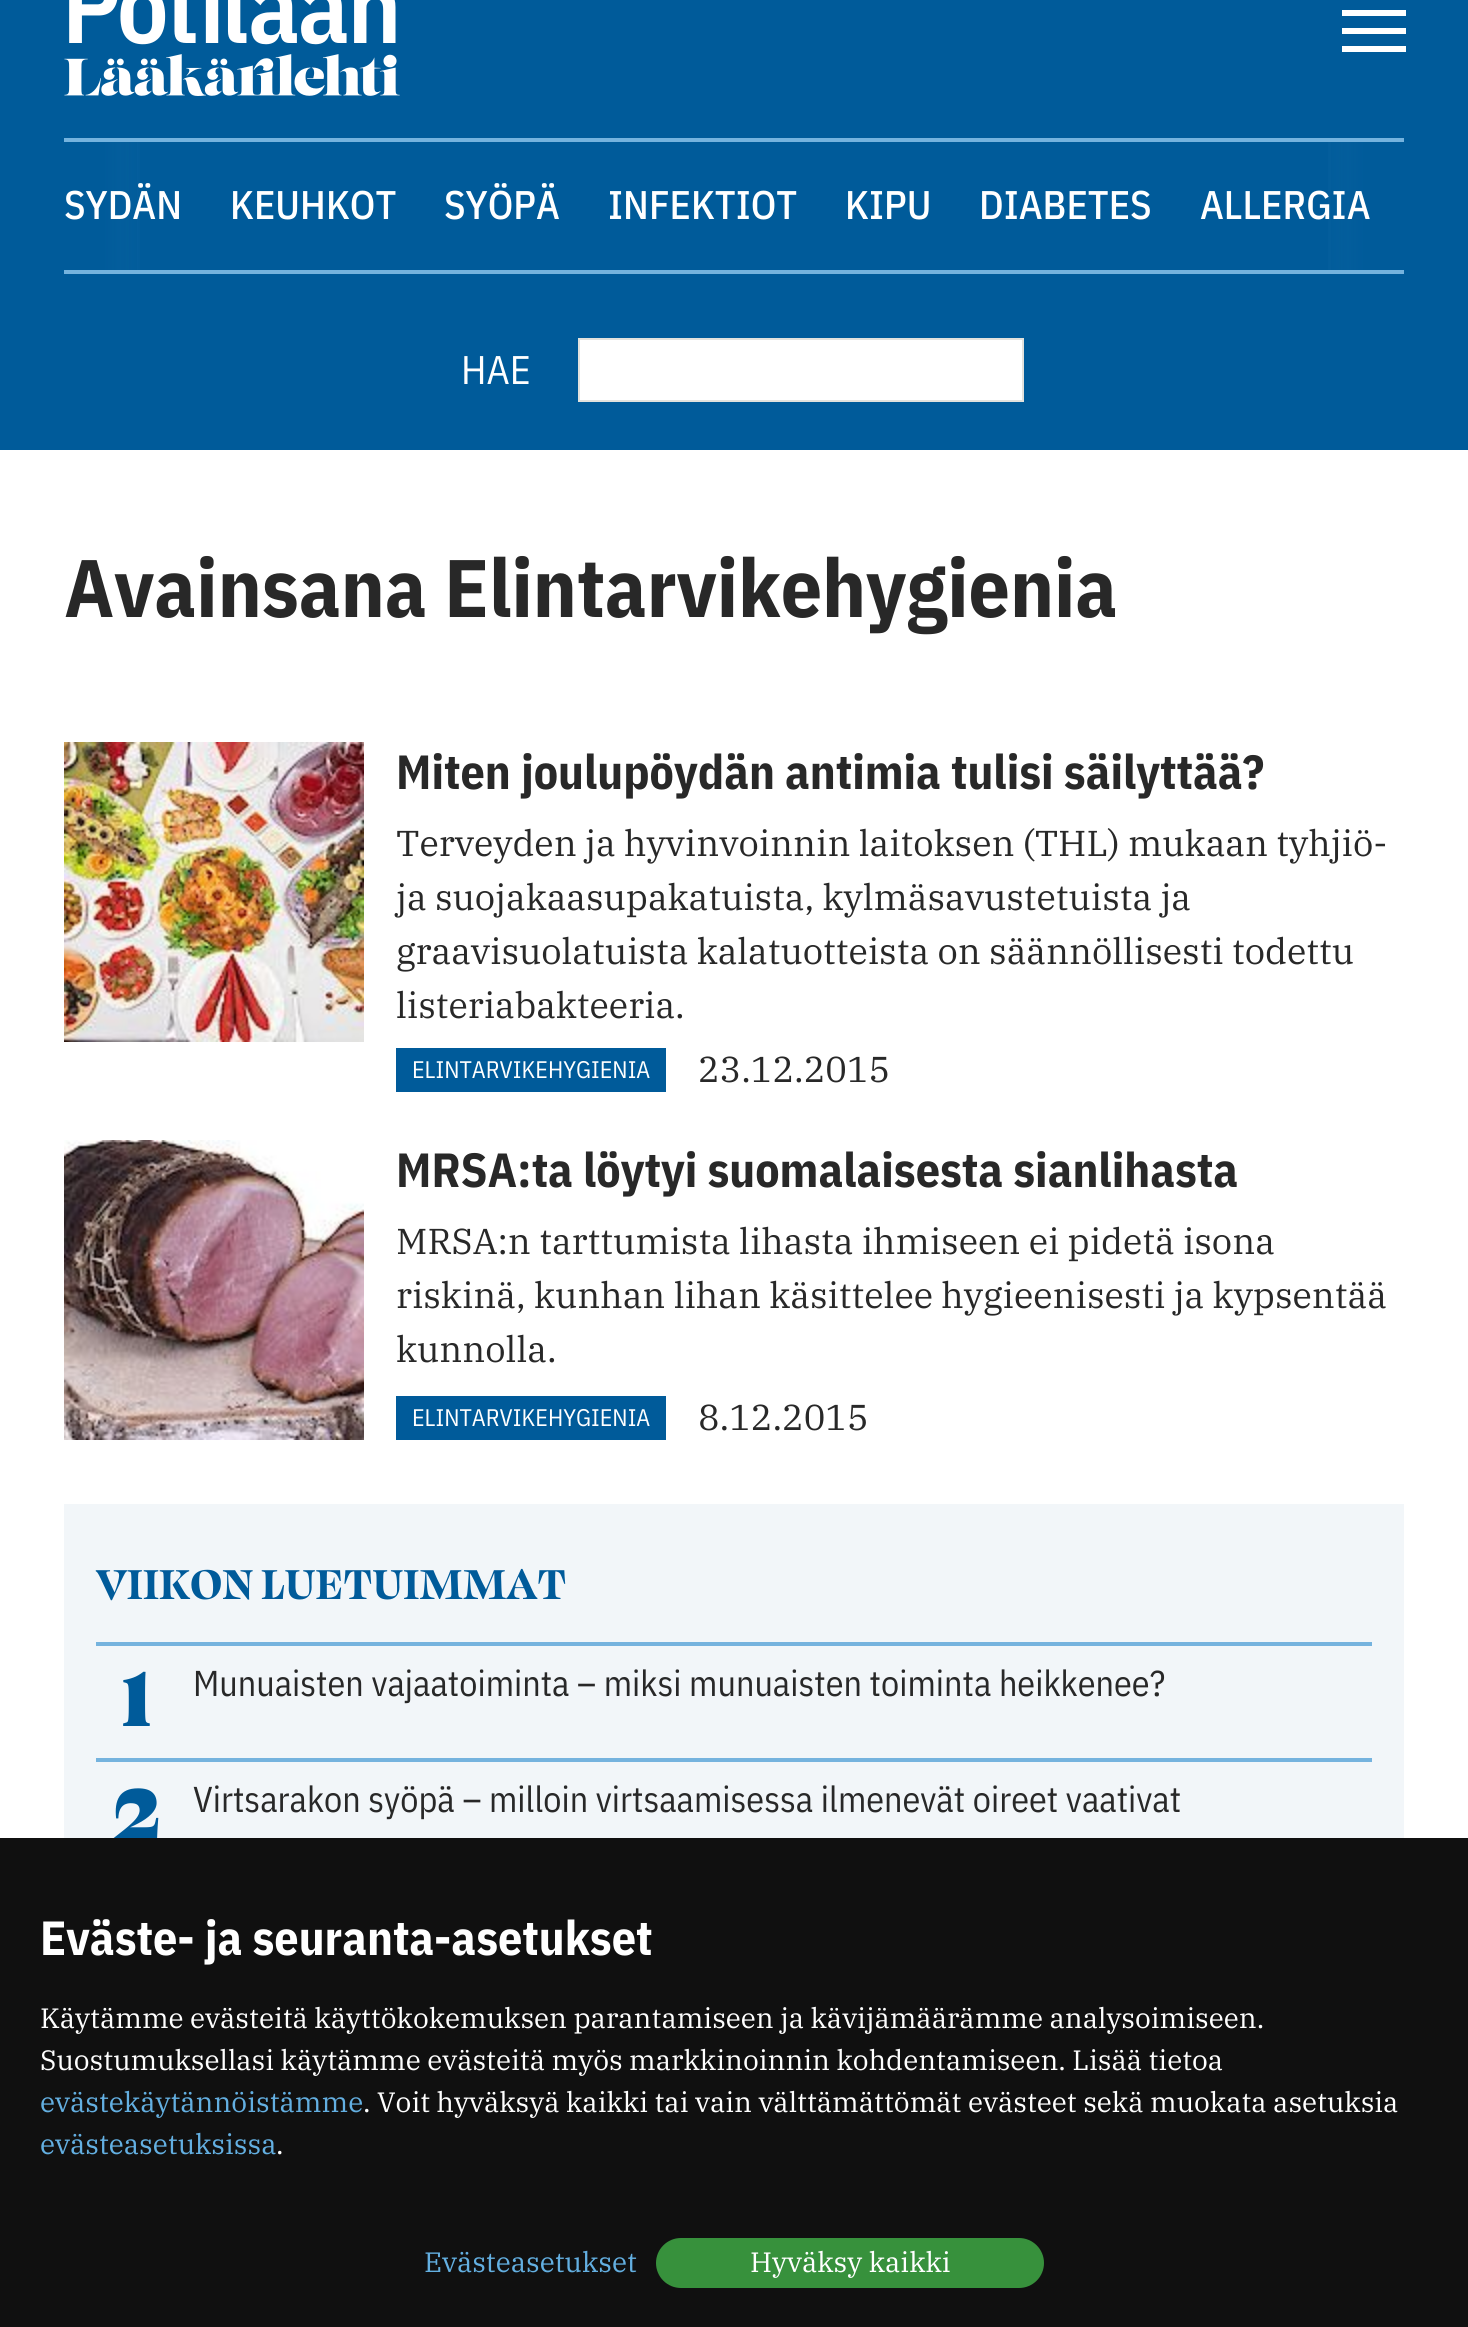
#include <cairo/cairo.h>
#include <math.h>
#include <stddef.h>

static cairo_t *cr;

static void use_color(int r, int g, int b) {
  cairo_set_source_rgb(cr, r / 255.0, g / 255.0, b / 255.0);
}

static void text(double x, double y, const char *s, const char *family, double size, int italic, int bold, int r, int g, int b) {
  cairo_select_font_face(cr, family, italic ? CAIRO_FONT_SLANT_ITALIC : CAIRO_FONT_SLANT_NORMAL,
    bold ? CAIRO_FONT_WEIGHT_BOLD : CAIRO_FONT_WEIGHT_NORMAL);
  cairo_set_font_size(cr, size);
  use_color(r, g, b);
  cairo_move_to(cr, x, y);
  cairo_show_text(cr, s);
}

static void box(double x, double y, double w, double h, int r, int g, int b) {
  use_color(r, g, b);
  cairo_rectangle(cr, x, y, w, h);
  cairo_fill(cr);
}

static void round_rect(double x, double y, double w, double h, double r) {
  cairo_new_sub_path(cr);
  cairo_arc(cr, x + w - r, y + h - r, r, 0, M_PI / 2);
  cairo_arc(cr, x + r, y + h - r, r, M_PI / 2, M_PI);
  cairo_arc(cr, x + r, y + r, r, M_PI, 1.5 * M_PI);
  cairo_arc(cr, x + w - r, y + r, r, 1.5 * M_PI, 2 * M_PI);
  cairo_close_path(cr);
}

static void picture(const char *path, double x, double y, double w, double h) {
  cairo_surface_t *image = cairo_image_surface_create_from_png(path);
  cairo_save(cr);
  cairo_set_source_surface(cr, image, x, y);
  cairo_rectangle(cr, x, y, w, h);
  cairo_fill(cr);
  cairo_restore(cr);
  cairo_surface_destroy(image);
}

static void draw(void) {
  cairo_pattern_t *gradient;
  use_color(255, 255, 255);
  cairo_paint(cr);
  box(0, 0, 1468, 450, 0, 91, 154);
  picture("img_01.png", 64, 0, 336, 96);
  box(1342, 10, 64, 6, 255, 255, 255);
  box(1342, 28, 64, 6, 255, 255, 255);
  box(1342, 46, 64, 6, 255, 255, 255);
  box(64, 138, 1340, 4, 117, 179, 222);
  box(64, 270, 1340, 4, 117, 179, 222);
  gradient = cairo_pattern_create_linear(1404, 206, 64, 206);
  cairo_pattern_add_color_stop_rgba(gradient, 0, 0.184, 0.494, 0.71, 1);
  cairo_pattern_add_color_stop_rgba(gradient, 0.06, 0, 0.357, 0.604, 1);
  cairo_set_source(cr, gradient);
  cairo_pattern_destroy(gradient);
  cairo_rectangle(cr, 1328, 142, 35, 128);
  cairo_fill(cr);
  gradient = cairo_pattern_create_linear(64, 206, 1404, 206);
  cairo_pattern_add_color_stop_rgba(gradient, 0, 0.459, 0.702, 0.871, 0.4);
  cairo_pattern_add_color_stop_rgba(gradient, 0.06, 0.459, 0.702, 0.871, 0);
  cairo_set_source(cr, gradient);
  cairo_pattern_destroy(gradient);
  cairo_rectangle(cr, 105, 142, 35, 128);
  cairo_fill(cr);
  gradient = cairo_pattern_create_linear(1404, 206, 64, 206);
  cairo_pattern_add_color_stop_rgba(gradient, 0.03, 0, 0.357, 0.604, 1);
  cairo_pattern_add_color_stop_rgba(gradient, 0.09, 0, 0.357, 0.604, 0);
  cairo_set_source(cr, gradient);
  cairo_pattern_destroy(gradient);
  cairo_rectangle(cr, 1331, 142, 32, 128);
  cairo_fill(cr);
  gradient = cairo_pattern_create_linear(64, 206, 1404, 206);
  cairo_pattern_add_color_stop_rgba(gradient, 0.03, 0, 0.357, 0.604, 1);
  cairo_pattern_add_color_stop_rgba(gradient, 0.09, 0, 0.357, 0.604, 0);
  cairo_set_source(cr, gradient);
  cairo_pattern_destroy(gradient);
  cairo_rectangle(cr, 105, 142, 32, 128);
  cairo_fill(cr);
  use_color(255, 255, 255);
  cairo_rectangle(cr, 579, 339, 444, 62);
  cairo_fill_preserve(cr);
  use_color(226, 226, 221);
  cairo_stroke(cr);
  picture("img_02.png", 64, 742, 300, 300);
  box(396, 1048, 270, 44, 0, 91, 154);
  picture("img_03.png", 64, 1140, 300, 300);
  box(396, 1396, 270, 44, 0, 91, 154);
  box(64, 1504, 1340, 334, 242, 246, 249);
  box(96, 1642, 1276, 4, 117, 179, 222);
  box(96, 1758, 1276, 4, 117, 179, 222);
  text(64, 219, "SYDÄN", "IBM Plex Sans Condensed Medium", 40, 0, 0, 255, 255, 255);
  text(230, 219, "KEUHKOT", "IBM Plex Sans Condensed Medium", 40, 0, 0, 255, 255, 255);
  text(444, 219, "SYÖPÄ", "IBM Plex Sans Condensed Medium", 40, 0, 0, 255, 255, 255);
  text(608, 219, "INFEKTIOT", "IBM Plex Sans Condensed Medium", 40, 0, 0, 255, 255, 255);
  text(845, 219, "KIPU", "IBM Plex Sans Condensed Medium", 40, 0, 0, 255, 255, 255);
  text(979, 219, "DIABETES", "IBM Plex Sans Condensed Medium", 40, 0, 0, 255, 255, 255);
  text(1200, 219, "ALLERGIA", "IBM Plex Sans Condensed Medium", 40, 0, 0, 255, 255, 255);
  text(461, 384, "HAE", "IBM Plex Sans Condensed", 40, 0, 0, 255, 255, 255);
  text(64, 617, "Avainsana Elintarvikehygienia", "IBM Plex Sans Condensed", 81.5, 0, 1, 40, 40, 40);
  text(396, 789, "Miten joulupöydän antimia tulisi säilyttää?", "IBM Plex Sans Condensed", 48, 0, 1, 40, 40, 40);
  text(396, 856, "Terveyden ja hyvinvoinnin laitoksen (THL) mukaan tyhjiö-", "IBM Plex Serif", 36, 0, 0, 40, 40, 40);
  text(396, 910, "ja suojakaasupakatuista, kylmäsavustetuista ja", "IBM Plex Serif", 36, 0, 0, 40, 40, 40);
  text(396, 964, "graavisuolatuista kalatuotteista on säännöllisesti todettu", "IBM Plex Serif", 36, 0, 0, 40, 40, 40);
  text(396, 1018, "listeriabakteeria.", "IBM Plex Serif", 36, 0, 0, 40, 40, 40);
  text(412, 1078, "ELINTARVIKEHYGIENIA", "IBM Plex Sans Condensed", 24, 0, 0, 255, 255, 255);
  text(698, 1082, "23.12.2015", "IBM Plex Serif", 36, 0, 0, 40, 40, 40);
  text(396, 1187, "MRSA:ta löytyi suomalaisesta sianlihasta", "IBM Plex Sans Condensed", 48, 0, 1, 40, 40, 40);
  text(396, 1254, "MRSA:n tarttumista lihasta ihmiseen ei pidetä isona", "IBM Plex Serif", 36, 0, 0, 40, 40, 40);
  text(396, 1308, "riskinä, kunhan lihan käsittelee hygieenisesti ja kypsentää", "IBM Plex Serif", 36, 0, 0, 40, 40, 40);
  text(396, 1362, "kunnolla.", "IBM Plex Serif", 36, 0, 0, 40, 40, 40);
  text(412, 1426, "ELINTARVIKEHYGIENIA", "IBM Plex Sans Condensed", 24, 0, 0, 255, 255, 255);
  text(698, 1430, "8.12.2015", "IBM Plex Serif", 36, 0, 0, 40, 40, 40);
  text(96, 1599, "VIIKON LUETUIMMAT", "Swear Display", 48, 0, 1, 0, 91, 154);
  text(122, 1726, "1", "Swear Display Black", 88, 0, 0, 0, 91, 154);
  text(193, 1696, "Munuaisten vajaatoiminta – miksi munuaisten toiminta heikkenee?", "IBM Plex Sans Condensed", 36, 0, 0, 40, 40, 40);
  text(112, 1842, "2", "Swear Display Black", 88, 0, 0, 0, 91, 154);
  text(193, 1812, "Virtsarakon syöpä – milloin virtsaamisessa ilmenevät oireet vaativat", "IBM Plex Sans Condensed", 36, 0, 0, 40, 40, 40);
  box(0, 1838, 1468, 489, 16, 16, 16);
  text(40, 1955, "Eväste- ja seuranta-asetukset", "IBM Plex Sans Condensed", 48, 0, 1, 255, 255, 255);
  text(40, 2028, "Käytämme evästeitä käyttökokemuksen parantamiseen ja kävijämäärämme analysoimiseen.", "IBM Plex Serif", 28, 0, 0, 255, 255, 255);
  text(40, 2070, "Suostumuksellasi käytämme evästeitä myös markkinoinnin kohdentamiseen. Lisää tietoa", "IBM Plex Serif", 28, 0, 0, 255, 255, 255);
  text(40, 2112, "evästekäytännöistämme", "IBM Plex Serif", 28, 0, 0, 99, 175, 225);
  text(363, 2112, ". Voit hyväksyä kaikki tai vain välttämättömät evästeet sekä muokata asetuksia", "IBM Plex Serif", 28, 0, 0, 255, 255, 255);
  text(40, 2154, "evästeasetuksissa", "IBM Plex Serif", 28, 0, 0, 99, 175, 225);
  text(276, 2154, ".", "IBM Plex Serif", 28, 0, 0, 255, 255, 255);
  text(424, 2272, "Evästeasetukset", "IBM Plex Serif", 28, 0, 0, 99, 175, 225);
  use_color(55, 145, 60);
  round_rect(656, 2238, 388, 50, 25);
  cairo_fill(cr);
  text(750, 2272, "Hyväksy kaikki", "IBM Plex Serif", 28, 0, 0, 255, 255, 255);
}

int main(void) {
  cairo_surface_t *surface = cairo_image_surface_create(CAIRO_FORMAT_RGB24, 1468, 2327);
  cr = cairo_create(surface);
  cairo_font_options_t *options = cairo_font_options_create();
  cairo_font_options_set_hint_metrics(options, CAIRO_HINT_METRICS_OFF);
  cairo_font_options_set_hint_style(options, CAIRO_HINT_STYLE_NONE);
  cairo_set_font_options(cr, options);
  cairo_set_miter_limit(cr, 4);
  draw();
  cairo_surface_write_to_png(surface, "out.png");
  cairo_font_options_destroy(options);
  cairo_destroy(cr);
  cairo_surface_destroy(surface);
  return 0;
}
